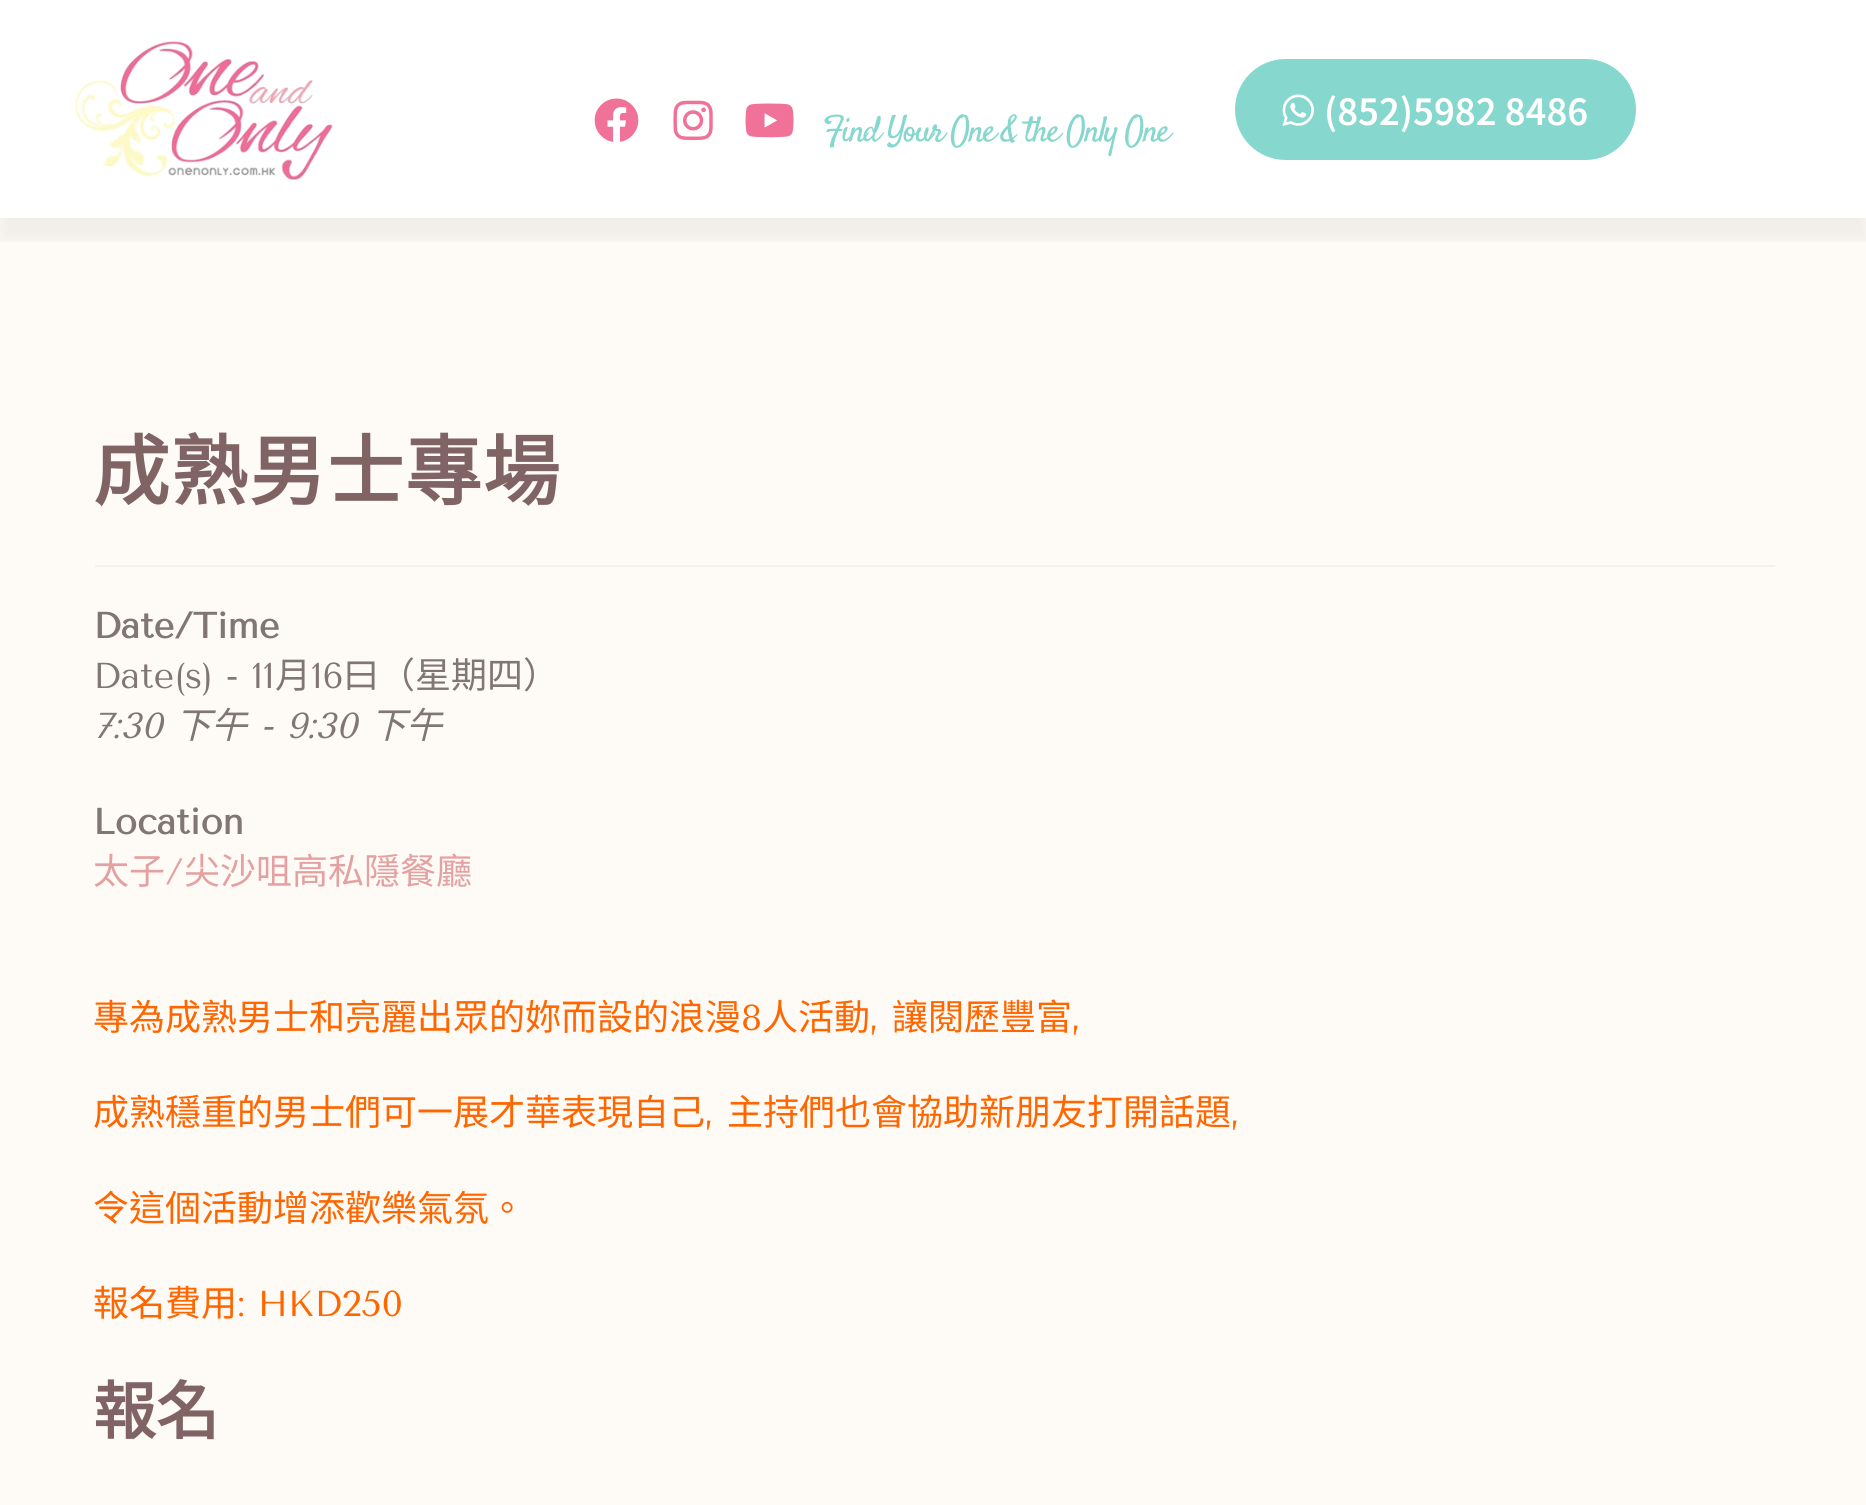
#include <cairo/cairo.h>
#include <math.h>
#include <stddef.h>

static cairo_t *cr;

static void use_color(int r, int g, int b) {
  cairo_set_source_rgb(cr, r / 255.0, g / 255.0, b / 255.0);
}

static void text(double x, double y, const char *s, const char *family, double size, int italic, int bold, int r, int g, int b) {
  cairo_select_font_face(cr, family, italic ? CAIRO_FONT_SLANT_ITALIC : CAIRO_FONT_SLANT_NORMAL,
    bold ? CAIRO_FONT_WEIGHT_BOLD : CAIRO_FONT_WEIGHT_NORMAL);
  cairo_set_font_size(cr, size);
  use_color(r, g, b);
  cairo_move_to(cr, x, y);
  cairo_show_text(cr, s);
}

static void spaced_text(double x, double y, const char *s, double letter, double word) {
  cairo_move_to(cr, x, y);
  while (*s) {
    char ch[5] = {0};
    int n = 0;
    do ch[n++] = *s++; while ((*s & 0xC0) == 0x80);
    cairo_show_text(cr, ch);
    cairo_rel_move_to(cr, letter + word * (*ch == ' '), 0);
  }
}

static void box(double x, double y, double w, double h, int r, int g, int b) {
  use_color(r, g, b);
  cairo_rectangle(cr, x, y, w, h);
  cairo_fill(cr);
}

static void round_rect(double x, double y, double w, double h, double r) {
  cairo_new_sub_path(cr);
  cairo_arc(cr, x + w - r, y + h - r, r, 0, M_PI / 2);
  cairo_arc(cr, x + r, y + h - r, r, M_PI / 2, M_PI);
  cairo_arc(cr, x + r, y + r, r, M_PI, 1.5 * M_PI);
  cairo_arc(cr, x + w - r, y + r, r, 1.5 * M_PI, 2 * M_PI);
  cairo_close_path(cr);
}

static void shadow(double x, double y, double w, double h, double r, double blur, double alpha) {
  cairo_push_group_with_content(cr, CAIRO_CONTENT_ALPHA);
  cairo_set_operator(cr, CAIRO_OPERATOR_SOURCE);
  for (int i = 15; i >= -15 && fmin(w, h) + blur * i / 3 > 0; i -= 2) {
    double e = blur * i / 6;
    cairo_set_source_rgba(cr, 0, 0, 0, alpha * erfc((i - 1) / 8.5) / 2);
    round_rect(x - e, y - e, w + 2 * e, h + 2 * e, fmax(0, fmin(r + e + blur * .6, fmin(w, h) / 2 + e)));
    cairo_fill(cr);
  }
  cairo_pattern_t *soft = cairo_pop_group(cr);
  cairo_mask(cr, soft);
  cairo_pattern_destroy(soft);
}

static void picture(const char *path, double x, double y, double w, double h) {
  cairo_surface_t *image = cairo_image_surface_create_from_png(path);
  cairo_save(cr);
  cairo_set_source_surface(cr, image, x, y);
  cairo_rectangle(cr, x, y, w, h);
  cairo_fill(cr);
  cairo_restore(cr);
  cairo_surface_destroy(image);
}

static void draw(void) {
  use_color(254, 250, 246);
  cairo_paint(cr);
  box(0, 0, 1866, 218, 255, 255, 255);
  cairo_save(cr);
  cairo_rectangle(cr, 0, 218, 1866, 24);
  cairo_clip(cr);
  use_color(0, 0, 0);
  shadow(0, 23, 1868, 218, 0, 5.5, 0.05);
  cairo_restore(cr);
  picture("img_01.png", 74, 41, 259, 140);
  picture("img_02.png", 594, 98, 45, 44);
  picture("img_03.png", 673, 100, 40, 41);
  picture("img_04.png", 745, 103, 49, 35);
  use_color(134, 215, 206);
  round_rect(1236, 60, 399, 99, 49.5);
  cairo_fill_preserve(cr);
  cairo_stroke(cr);
  picture("img_05.png", 1282, 94, 32, 32);
  box(95, 565, 1680, 2, 241, 241, 241);
  cairo_select_font_face(cr, "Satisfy", CAIRO_FONT_SLANT_NORMAL, CAIRO_FONT_WEIGHT_NORMAL);
  cairo_set_font_size(cr, 36);
  use_color(134, 215, 206);
  spaced_text(823, 141, "Find Your One & the Only One", -2.25, 0);
  text(1324, 125, "(852)5982 8486", "Noto Sans HK SemiBold", 36, 0, 0, 255, 255, 255);
  cairo_select_font_face(cr, "Noto Sans CJK TC", CAIRO_FONT_SLANT_NORMAL, CAIRO_FONT_WEIGHT_BOLD);
  cairo_set_font_size(cr, 76.5);
  use_color(128, 100, 100);
  spaced_text(93, 499, "成熟男士專場", 1.5, 0);
  text(93, 638, "Date/Time", "Tenor Sans", 36, 0, 1, 128, 118, 115);
  text(93, 688, "Date(s) - 11", "Tenor Sans", 36, 0, 0, 128, 118, 115);
  text(275, 688, "月", "Noto Sans CJK TC", 36, 0, 0, 128, 118, 115);
  text(311, 688, "16", "Tenor Sans", 36, 0, 0, 128, 118, 115);
  text(343, 688, "曰（星期四）", "Noto Sans CJK TC", 36, 0, 0, 128, 118, 115);
  text(93, 738, "7:30", "Tenor Sans", 36, 1, 0, 128, 118, 115);
  text(175, 738, "下午", "Noto Sans CJK TC", 36, 1, 0, 128, 118, 115);
  text(260, 738, "- 9:30", "Tenor Sans", 36, 1, 0, 128, 118, 115);
  text(370, 738, "下午", "Noto Sans CJK TC", 36, 1, 0, 128, 118, 115);
  text(93, 834, "Location", "Tenor Sans", 36, 0, 1, 128, 118, 115);
  text(93, 884, "太子", "Noto Sans CJK TC", 36, 0, 0, 227, 161, 161);
  text(165, 884, "/", "Tenor Sans", 36, 0, 0, 227, 161, 161);
  text(184, 884, "尖沙咀高私隱餐廳", "Noto Sans CJK TC", 36, 0, 0, 227, 161, 161);
  text(93, 1030, "專為成熟男士和亮麗出眾的妳而設的浪漫", "Noto Sans CJK TC", 36, 0, 0, 255, 102, 0);
  text(741, 1030, "8", "Tenor Sans", 36, 0, 0, 255, 102, 0);
  text(762, 1030, "人活動", "Noto Sans CJK TC", 36, 0, 0, 255, 102, 0);
  text(870, 1030, ",", "Tenor Sans", 36, 0, 0, 255, 102, 0);
  text(892, 1030, "讓閱歷豐富", "Noto Sans CJK TC", 36, 0, 0, 255, 102, 0);
  text(1072, 1030, ",", "Tenor Sans", 36, 0, 0, 255, 102, 0);
  text(93, 1125, "成熟穩重的男士們可一展才華表現自己", "Noto Sans CJK TC", 36, 0, 0, 255, 102, 0);
  text(705, 1125, ",", "Tenor Sans", 36, 0, 0, 255, 102, 0);
  text(727, 1125, "主持們也會協助新朋友打開話題", "Noto Sans CJK TC", 36, 0, 0, 255, 102, 0);
  text(1231, 1125, ",", "Tenor Sans", 36, 0, 0, 255, 102, 0);
  text(93, 1221, "令這個活動增添歡樂氣氛。", "Noto Sans CJK TC", 36, 0, 0, 255, 102, 0);
  text(93, 1316, "報名費用", "Noto Sans CJK TC", 36, 0, 0, 255, 102, 0);
  text(237, 1316, ": HKD250", "Tenor Sans", 36, 0, 0, 255, 102, 0);
  text(93, 1434, "報名", "Noto Sans CJK TC", 63, 0, 1, 128, 100, 100);
}

int main(void) {
  cairo_surface_t *surface = cairo_image_surface_create(CAIRO_FORMAT_RGB24, 1866, 1505);
  cr = cairo_create(surface);
  cairo_font_options_t *options = cairo_font_options_create();
  cairo_font_options_set_hint_metrics(options, CAIRO_HINT_METRICS_OFF);
  cairo_font_options_set_hint_style(options, CAIRO_HINT_STYLE_NONE);
  cairo_set_font_options(cr, options);
  cairo_set_miter_limit(cr, 4);
  draw();
  cairo_surface_write_to_png(surface, "out.png");
  cairo_font_options_destroy(options);
  cairo_destroy(cr);
  cairo_surface_destroy(surface);
  return 0;
}
